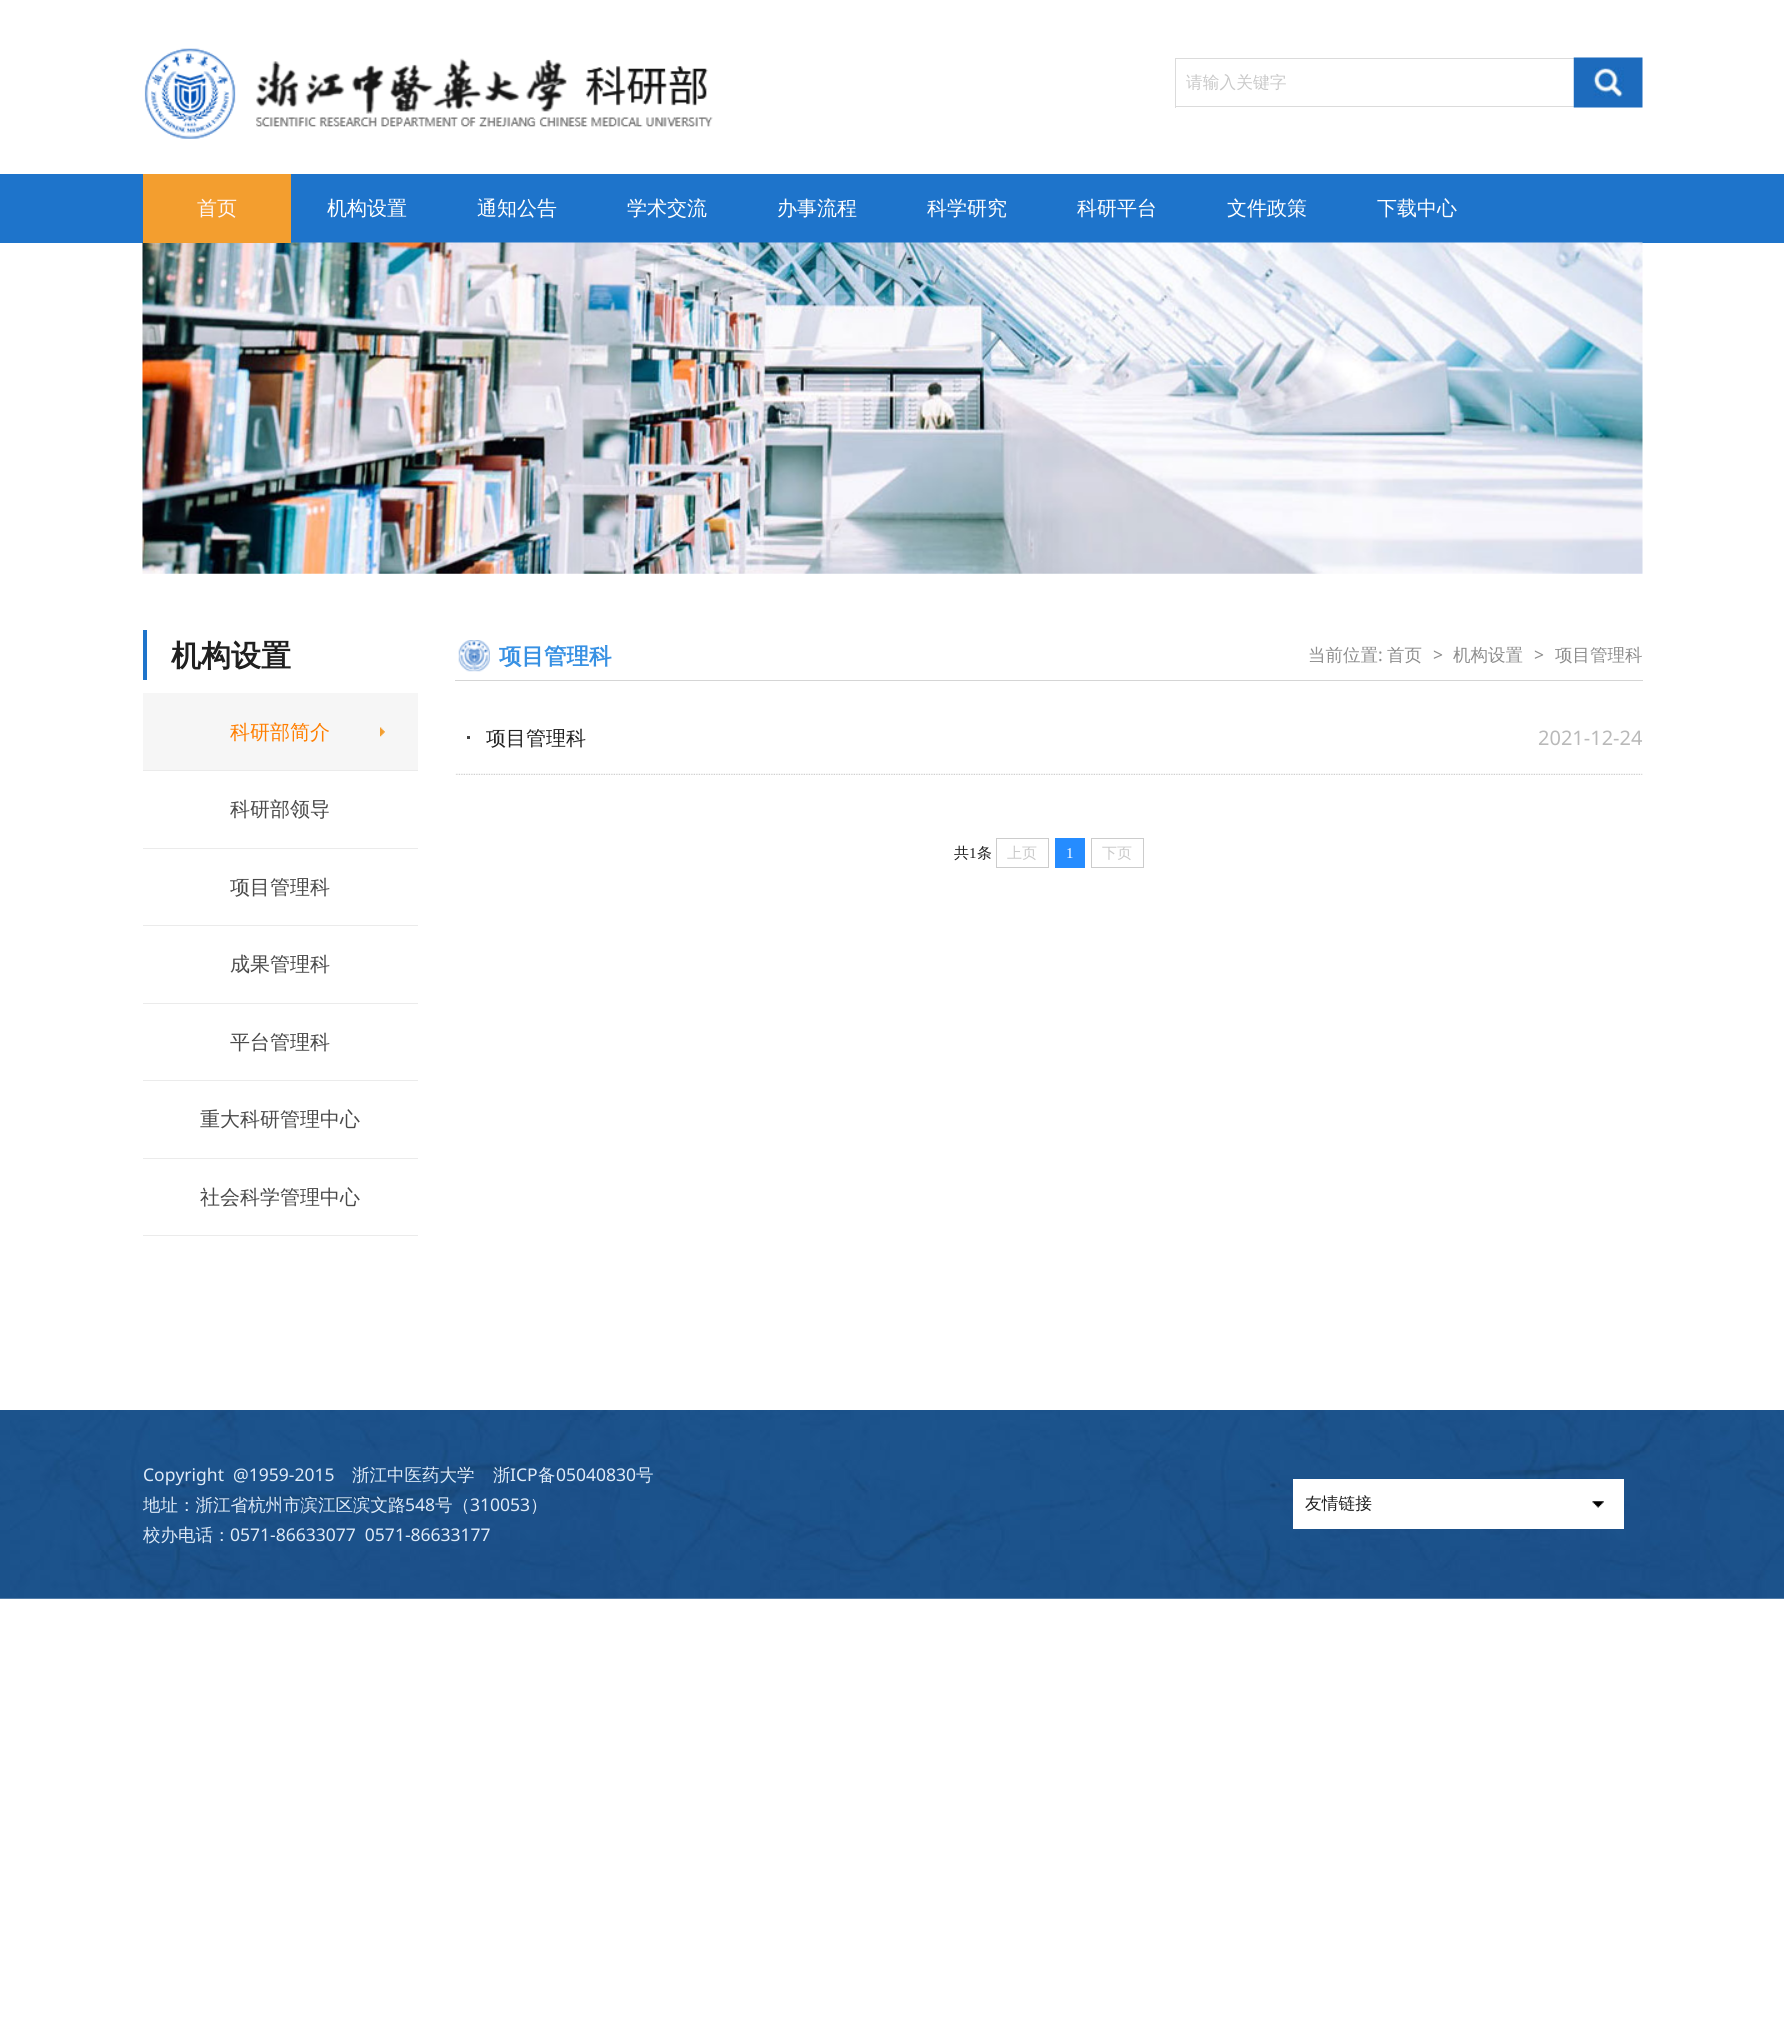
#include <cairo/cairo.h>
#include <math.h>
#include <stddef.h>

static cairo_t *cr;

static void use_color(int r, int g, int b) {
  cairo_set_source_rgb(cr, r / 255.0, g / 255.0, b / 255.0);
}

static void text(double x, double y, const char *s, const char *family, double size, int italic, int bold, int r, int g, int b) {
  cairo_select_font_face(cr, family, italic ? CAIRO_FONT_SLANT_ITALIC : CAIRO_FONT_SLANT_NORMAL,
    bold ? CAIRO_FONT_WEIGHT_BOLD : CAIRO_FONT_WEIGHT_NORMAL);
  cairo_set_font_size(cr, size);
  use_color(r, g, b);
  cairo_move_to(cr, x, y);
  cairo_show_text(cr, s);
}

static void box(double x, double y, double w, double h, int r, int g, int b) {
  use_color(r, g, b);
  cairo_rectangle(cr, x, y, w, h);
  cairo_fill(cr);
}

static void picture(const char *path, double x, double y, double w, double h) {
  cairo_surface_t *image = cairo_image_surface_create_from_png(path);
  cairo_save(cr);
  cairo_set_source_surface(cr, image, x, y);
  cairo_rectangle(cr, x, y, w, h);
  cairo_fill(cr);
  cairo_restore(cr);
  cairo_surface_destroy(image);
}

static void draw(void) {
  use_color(255, 255, 255);
  cairo_paint(cr);
  picture("img_01.png", 144, 48, 569, 91);
  box(1175, 58, 399, 1, 219, 219, 219);
  box(1175, 106, 399, 1, 219, 219, 219);
  box(1175, 58, 1, 50, 219, 219, 219);
  picture("img_02.png", 1573, 57, 70, 51);
  box(0, 174, 1784, 69, 30, 116, 203);
  picture("img_03.png", 142, 242, 1501, 332);
  box(143, 174, 148, 69, 243, 158, 47);
  box(143, 630, 4, 50, 30, 116, 203);
  box(143, 693, 275, 77, 246, 246, 246);
  picture("img_04.png", 380, 727, 5, 10);
  box(143, 770, 275, 1, 235, 235, 235);
  box(143, 848, 275, 1, 235, 235, 235);
  box(143, 925, 275, 1, 235, 235, 235);
  box(143, 1003, 275, 1, 235, 235, 235);
  box(143, 1080, 275, 1, 235, 235, 235);
  box(143, 1158, 275, 1, 235, 235, 235);
  box(143, 1235, 275, 1, 235, 235, 235);
  box(455, 680, 1188, 1, 213, 213, 213);
  picture("img_05.png", 458, 640, 32, 32);
  picture("img_06.png", 455, 773, 1188, 2);
  box(467, 736, 3, 3, 68, 68, 68);
  cairo_rectangle(cr, 996.5, 838.5, 52, 29);
  use_color(204, 204, 204);
  cairo_set_line_width(cr, 1);
  cairo_stroke(cr);
  box(1055, 838, 30, 30, 37, 140, 255);
  cairo_rectangle(cr, 1091.5, 838.5, 52, 29);
  use_color(204, 204, 204);
  cairo_stroke(cr);
  picture("img_07.png", 0, 1410, 1784, 189);
  box(1293, 1479, 331, 50, 255, 255, 255);
  picture("img_08.png", 1592, 1501, 12, 7);
  text(1186, 88, "请输入关键字", "WenQuanYi Zen Hei Medium", 16.75, 0, 0, 201, 201, 201);
  text(197, 215, "首页", "WenQuanYi Zen Hei Medium", 20, 0, 0, 255, 247, 247);
  text(327, 215, "机构设置", "WenQuanYi Zen Hei Medium", 20, 0, 0, 255, 255, 255);
  text(477, 215, "通知公告", "WenQuanYi Zen Hei Medium", 20, 0, 0, 255, 255, 255);
  text(627, 215, "学术交流", "WenQuanYi Zen Hei Medium", 20, 0, 0, 255, 255, 255);
  text(777, 215, "办事流程", "WenQuanYi Zen Hei Medium", 20, 0, 0, 255, 255, 255);
  text(927, 215, "科学研究", "WenQuanYi Zen Hei Medium", 20, 0, 0, 255, 255, 255);
  text(1077, 215, "科研平台", "WenQuanYi Zen Hei Medium", 20, 0, 0, 255, 255, 255);
  text(1227, 215, "文件政策", "WenQuanYi Zen Hei Medium", 20, 0, 0, 255, 255, 255);
  text(1377, 215, "下载中心", "WenQuanYi Zen Hei Medium", 20, 0, 0, 255, 255, 255);
  text(171, 666, "机构设置", "WenQuanYi Zen Hei", 30, 0, 1, 32, 32, 32);
  text(230, 739, "科研部简介", "WenQuanYi Zen Hei Medium", 20, 0, 0, 255, 126, 0);
  text(230, 816, "科研部领导", "WenQuanYi Zen Hei Medium", 20, 0, 0, 73, 73, 73);
  text(230, 894, "项目管理科", "WenQuanYi Zen Hei Medium", 20, 0, 0, 73, 73, 73);
  text(230, 971, "成果管理科", "WenQuanYi Zen Hei Medium", 20, 0, 0, 73, 73, 73);
  text(230, 1049, "平台管理科", "WenQuanYi Zen Hei Medium", 20, 0, 0, 73, 73, 73);
  text(200, 1126, "重大科研管理中心", "WenQuanYi Zen Hei Medium", 20, 0, 0, 73, 73, 73);
  text(200, 1204, "社会科学管理中心", "WenQuanYi Zen Hei Medium", 20, 0, 0, 73, 73, 73);
  text(499, 664, "项目管理科", "WenQuanYi Zen Hei", 22.5, 0, 1, 56, 145, 227);
  text(1308, 661, "当前位置", "WenQuanYi Zen Hei Medium", 17.5, 0, 0, 141, 141, 141);
  text(1378, 661, ":", "Noto Sans", 17.5, 0, 0, 141, 141, 141);
  text(1387, 661, "首页", "WenQuanYi Zen Hei Medium", 17.5, 0, 0, 141, 141, 141);
  text(1433, 661, ">", "Noto Sans", 17.5, 0, 0, 141, 141, 141);
  text(1453, 661, "机构设置", "WenQuanYi Zen Hei Medium", 17.5, 0, 0, 141, 141, 141);
  text(1534, 661, ">", "Noto Sans", 17.5, 0, 0, 141, 141, 141);
  text(1555, 661, "项目管理科", "WenQuanYi Zen Hei Medium", 17.5, 0, 0, 141, 141, 141);
  text(486, 745, "项目管理科", "WenQuanYi Zen Hei Medium", 20, 0, 0, 32, 32, 32);
  text(1538, 745, "2021-12-24", "Noto Sans", 20, 0, 0, 185, 185, 185);
  text(954, 858, "共", "WenQuanYi Zen Hei Medium", 15, 0, 0, 32, 32, 32);
  text(969, 858, "1", "Liberation Serif", 15, 0, 0, 32, 32, 32);
  text(977, 858, "条", "WenQuanYi Zen Hei Medium", 15, 0, 0, 32, 32, 32);
  text(1007, 858, "上页", "WenQuanYi Zen Hei Medium", 15, 0, 0, 201, 201, 201);
  text(1066, 858, "1", "Liberation Serif", 15, 0, 0, 255, 255, 255);
  text(1102, 858, "下页", "WenQuanYi Zen Hei Medium", 15, 0, 0, 201, 201, 201);
  text(143, 1481, "Copyright  @1959-2015", "Noto Sans", 17.5, 0, 0, 223, 235, 248);
  text(352, 1481, "浙江中医药大学", "WenQuanYi Zen Hei Medium", 17.5, 0, 0, 223, 235, 248);
  text(493, 1481, "浙", "WenQuanYi Zen Hei Medium", 17.5, 0, 0, 223, 235, 248);
  text(510, 1481, "ICP", "Noto Sans", 17.5, 0, 0, 223, 235, 248);
  text(538, 1481, "备", "WenQuanYi Zen Hei Medium", 17.5, 0, 0, 223, 235, 248);
  text(556, 1481, "05040830", "Noto Sans", 17.5, 0, 0, 223, 235, 248);
  text(636, 1481, "号", "WenQuanYi Zen Hei Medium", 17.5, 0, 0, 223, 235, 248);
  text(143, 1511, "地址：浙江省杭州市滨江区滨文路", "WenQuanYi Zen Hei Medium", 17.5, 0, 0, 223, 235, 248);
  text(405, 1511, "548", "Noto Sans", 17.5, 0, 0, 223, 235, 248);
  text(435, 1511, "号（", "WenQuanYi Zen Hei Medium", 17.5, 0, 0, 223, 235, 248);
  text(470, 1511, "310053", "Noto Sans", 17.5, 0, 0, 223, 235, 248);
  text(530, 1511, "）", "WenQuanYi Zen Hei Medium", 17.5, 0, 0, 223, 235, 248);
  text(143, 1541, "校办电话：", "WenQuanYi Zen Hei Medium", 17.5, 0, 0, 223, 235, 248);
  text(230, 1541, "0571-86633077  0571-86633177", "Noto Sans", 17.5, 0, 0, 223, 235, 248);
  text(1305, 1509, "友情链接", "WenQuanYi Zen Hei Medium", 16.75, 0, 0, 32, 32, 32);
}

int main(void) {
  cairo_surface_t *surface = cairo_image_surface_create(CAIRO_FORMAT_RGB24, 1784, 2028);
  cr = cairo_create(surface);
  cairo_font_options_t *options = cairo_font_options_create();
  cairo_font_options_set_hint_metrics(options, CAIRO_HINT_METRICS_OFF);
  cairo_font_options_set_hint_style(options, CAIRO_HINT_STYLE_NONE);
  cairo_set_font_options(cr, options);
  cairo_set_miter_limit(cr, 4);
  draw();
  cairo_surface_write_to_png(surface, "out.png");
  cairo_font_options_destroy(options);
  cairo_destroy(cr);
  cairo_surface_destroy(surface);
  return 0;
}
